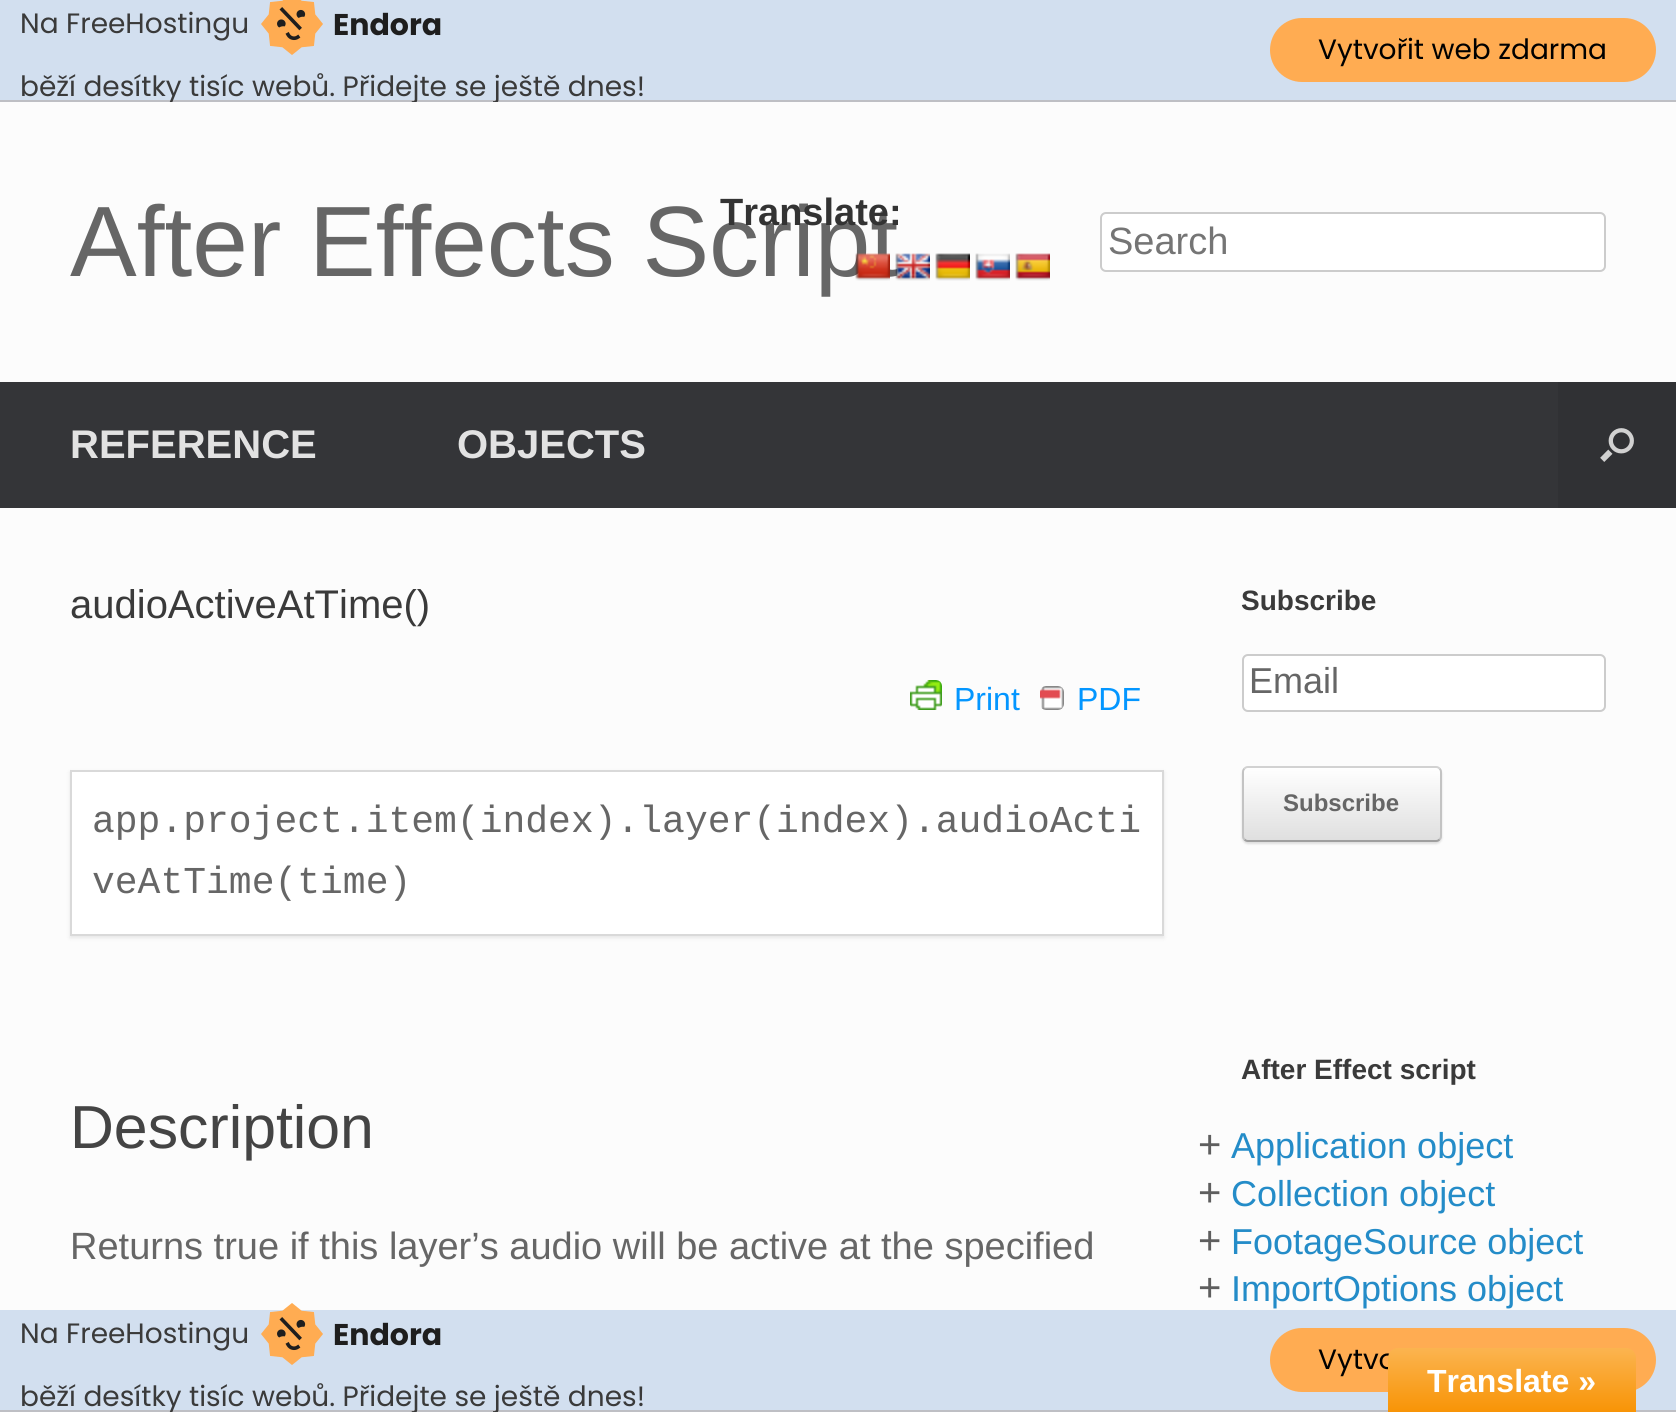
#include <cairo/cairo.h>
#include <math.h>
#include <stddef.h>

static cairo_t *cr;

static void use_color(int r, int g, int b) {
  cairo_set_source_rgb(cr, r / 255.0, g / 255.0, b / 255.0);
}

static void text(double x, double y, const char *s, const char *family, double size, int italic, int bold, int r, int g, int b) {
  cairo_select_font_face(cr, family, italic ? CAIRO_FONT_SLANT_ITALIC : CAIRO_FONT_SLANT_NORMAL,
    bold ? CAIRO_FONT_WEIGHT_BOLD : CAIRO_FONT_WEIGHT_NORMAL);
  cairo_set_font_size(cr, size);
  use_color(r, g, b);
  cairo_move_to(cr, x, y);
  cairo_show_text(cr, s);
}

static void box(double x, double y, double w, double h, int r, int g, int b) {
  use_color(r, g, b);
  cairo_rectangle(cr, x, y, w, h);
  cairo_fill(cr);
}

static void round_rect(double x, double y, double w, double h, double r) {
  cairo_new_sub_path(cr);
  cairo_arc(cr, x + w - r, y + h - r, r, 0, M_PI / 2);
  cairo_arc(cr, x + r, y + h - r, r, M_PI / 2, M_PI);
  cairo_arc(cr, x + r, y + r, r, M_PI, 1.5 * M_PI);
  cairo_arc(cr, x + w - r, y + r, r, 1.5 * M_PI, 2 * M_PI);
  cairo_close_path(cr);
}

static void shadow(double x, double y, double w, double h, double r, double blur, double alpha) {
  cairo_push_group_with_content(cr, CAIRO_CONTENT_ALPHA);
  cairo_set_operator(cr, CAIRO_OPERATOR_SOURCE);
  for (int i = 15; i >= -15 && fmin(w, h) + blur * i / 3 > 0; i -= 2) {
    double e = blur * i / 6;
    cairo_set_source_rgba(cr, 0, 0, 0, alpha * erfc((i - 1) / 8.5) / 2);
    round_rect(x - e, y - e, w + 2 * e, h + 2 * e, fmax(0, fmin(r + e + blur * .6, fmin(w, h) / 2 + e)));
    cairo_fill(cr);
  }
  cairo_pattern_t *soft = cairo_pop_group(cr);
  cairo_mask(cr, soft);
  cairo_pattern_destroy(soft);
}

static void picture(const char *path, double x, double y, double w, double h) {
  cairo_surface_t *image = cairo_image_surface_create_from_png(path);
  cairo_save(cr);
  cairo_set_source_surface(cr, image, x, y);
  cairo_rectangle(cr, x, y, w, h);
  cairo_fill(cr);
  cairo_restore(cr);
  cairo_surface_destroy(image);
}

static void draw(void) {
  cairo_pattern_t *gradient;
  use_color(210, 223, 239);
  cairo_paint(cr);
  box(0, 100, 1676, 2, 190, 191, 196);
  picture("img_01.png", 261, 0, 62, 55);
  use_color(255, 172, 82);
  round_rect(1270, 18, 386, 64, 32);
  cairo_fill(cr);
  box(0, 382, 1558, 126, 52, 53, 56);
  box(1558, 382, 118, 126, 48, 49, 52);
  picture("img_07.png", 1600, 428, 34, 34);
  box(0, 508, 1676, 802, 252, 252, 252);
  picture("img_08.png", 910, 680, 32, 30);
  picture("img_09.png", 1040, 686, 24, 24);
  use_color(0, 0, 0);
  shadow(70, 772, 1094, 166, 0, 2, 0.09);
  use_color(255, 255, 255);
  cairo_rectangle(cr, 71, 771, 1092, 164);
  cairo_fill_preserve(cr);
  use_color(217, 217, 217);
  cairo_stroke(cr);
  use_color(255, 255, 255);
  round_rect(1243, 655, 362, 56, 5);
  cairo_fill_preserve(cr);
  use_color(204, 204, 204);
  cairo_stroke(cr);
  use_color(0, 0, 0);
  shadow(1242, 768, 200, 76, 6, 1, 0.12);
  cairo_save(cr);
  round_rect(1242, 766, 200, 76, 6);
  cairo_clip(cr);
  gradient = cairo_pattern_create_linear(1244, 840, 1244, 768);
  cairo_pattern_add_color_stop_rgba(gradient, 0, 0.875, 0.875, 0.875, 1);
  cairo_pattern_add_color_stop_rgba(gradient, 1, 1, 1, 1, 1);
  cairo_set_source(cr, gradient);
  cairo_pattern_destroy(gradient);
  cairo_rectangle(cr, 1242, 768, 200, 72);
  cairo_fill(cr);
  cairo_restore(cr);
  cairo_new_path(cr);
  cairo_move_to(cr, 1244.5, 768.5);
  cairo_curve_to(cr, 1245.5, 767.5, 1246.5, 767, 1248, 767);
  cairo_line_to(cr, 1436, 767);
  cairo_curve_to(cr, 1437.5, 767, 1438.5, 767.5, 1439.5, 768.5);
  use_color(210, 210, 210);
  cairo_stroke(cr);
  cairo_new_path(cr);
  cairo_move_to(cr, 1439.5, 768.5);
  cairo_curve_to(cr, 1440.5, 769.5, 1441, 770.5, 1441, 772);
  cairo_line_to(cr, 1441, 836);
  cairo_curve_to(cr, 1441, 837.5, 1440.5, 838.5, 1439.5, 839.5);
  use_color(195, 195, 195);
  cairo_stroke(cr);
  cairo_new_path(cr);
  cairo_move_to(cr, 1439.5, 839.5);
  cairo_curve_to(cr, 1438.5, 840.5, 1437.5, 841, 1436, 841);
  cairo_line_to(cr, 1248, 841);
  cairo_curve_to(cr, 1246.5, 841, 1245.5, 840.5, 1244.5, 839.5);
  use_color(159, 159, 159);
  cairo_stroke(cr);
  cairo_new_path(cr);
  cairo_move_to(cr, 1244.5, 839.5);
  cairo_curve_to(cr, 1243.5, 838.5, 1243, 837.5, 1243, 836);
  cairo_line_to(cr, 1243, 772);
  cairo_curve_to(cr, 1243, 770.5, 1243.5, 769.5, 1244.5, 768.5);
  use_color(195, 195, 195);
  cairo_stroke(cr);
  box(0, 1410, 1676, 2, 190, 191, 196);
  picture("img_10.png", 261, 1303, 62, 62);
  use_color(255, 172, 82);
  round_rect(1270, 1328, 386, 64, 32);
  cairo_fill(cr);
  text(20, 33, "Na FreeHostingu", "Poppins", 28, 0, 0, 58, 58, 58);
  text(333, 35, "Endora", "Poppins", 30, 0, 1, 30, 30, 30);
  text(20, 96, "běží desítky tisíc webů. Přidejte se ještě dnes!", "Poppins", 28, 0, 0, 58, 58, 58);
  text(1318, 59, "Vytvořit web zdarma", "Poppins", 28, 0, 0, 0, 0, 0);
  box(0, 102, 1676, 280, 252, 252, 252);
  text(70, 276, "After Effects Script", "Liberation Sans", 100, 0, 0, 102, 102, 102);
  text(720, 225, "Translate:", "Liberation Sans", 38, 0, 1, 51, 51, 51);
  picture("img_02.png", 855, 253, 35, 28);
  picture("img_03.png", 895, 253, 35, 28);
  picture("img_04.png", 935, 253, 35, 28);
  picture("img_05.png", 975, 253, 35, 28);
  picture("img_06.png", 1015, 253, 35, 28);
  use_color(255, 255, 255);
  round_rect(1101, 213, 504, 58, 5);
  cairo_fill_preserve(cr);
  use_color(204, 204, 204);
  cairo_stroke(cr);
  text(1108, 254, "Search", "Liberation Sans", 38, 0, 0, 117, 117, 117);
  text(70, 458, "REFERENCE", "Liberation Sans", 40, 0, 1, 226, 226, 226);
  text(457, 458, "OBJECTS", "Liberation Sans", 40, 0, 1, 226, 226, 226);
  text(70, 618, "audioActiveAtTime()", "Liberation Sans", 40, 0, 0, 58, 58, 58);
  text(954, 710, "Print", "Liberation Sans", 32, 0, 0, 3, 150, 255);
  text(1077, 710, "PDF", "Liberation Sans", 32, 0, 0, 3, 150, 255);
  text(92, 832, "app.project.item(index).layer(index).audioActi", "Liberation Mono", 38, 0, 0, 102, 102, 102);
  text(92, 893, "veAtTime(time)", "Liberation Mono", 38, 0, 0, 102, 102, 102);
  text(70, 1148, "Description", "Liberation Sans", 60.75, 0, 0, 68, 68, 68);
  text(70, 1259, "Returns true if this layer’s audio will be active at the specified", "Liberation Sans", 38, 0, 0, 102, 102, 102);
  text(1241, 610, "Subscribe", "Liberation Sans", 28, 0, 1, 58, 58, 58);
  text(1249, 693, "Email", "Liberation Sans", 36, 0, 0, 102, 102, 102);
  text(1283, 811, "Subscribe", "Liberation Sans", 24, 0, 1, 102, 102, 102);
  text(1241, 1079, "After Effect script", "Liberation Sans", 28, 0, 1, 58, 58, 58);
  text(1198, 1158, "+", "Liberation Sans", 40, 0, 0, 94, 94, 94);
  text(1231, 1158, "Application object", "Liberation Sans", 36, 0, 0, 36, 140, 200);
  text(1198, 1206, "+", "Liberation Sans", 40, 0, 0, 94, 94, 94);
  text(1231, 1206, "Collection object", "Liberation Sans", 36, 0, 0, 36, 140, 200);
  text(1198, 1254, "+", "Liberation Sans", 40, 0, 0, 94, 94, 94);
  text(1231, 1254, "FootageSource object", "Liberation Sans", 36, 0, 0, 36, 140, 200);
  text(1198, 1301, "+", "Liberation Sans", 40, 0, 0, 94, 94, 94);
  text(1231, 1301, "ImportOptions object", "Liberation Sans", 36, 0, 0, 36, 140, 200);
  text(20, 1343, "Na FreeHostingu", "Poppins", 28, 0, 0, 58, 58, 58);
  text(333, 1345, "Endora", "Poppins", 30, 0, 1, 30, 30, 30);
  text(20, 1406, "běží desítky tisíc webů. Přidejte se ještě dnes!", "Poppins", 28, 0, 0, 58, 58, 58);
  text(1318, 1369, "Vytvo", "Poppins", 28, 0, 0, 0, 0, 0);
  gradient = cairo_pattern_create_linear(1512, 1348, 1512, 1412);
  cairo_pattern_add_color_stop_rgba(gradient, 0, 0.984, 0.706, 0.314, 1);
  cairo_pattern_add_color_stop_rgba(gradient, 1, 0.973, 0.58, 0.024, 1);
  cairo_set_source(cr, gradient);
  cairo_pattern_destroy(gradient);
  cairo_new_path(cr);
  cairo_move_to(cr, 1398, 1348);
  cairo_line_to(cr, 1626, 1348);
  cairo_curve_to(cr, 1631.5, 1348, 1636, 1352.5, 1636, 1358);
  cairo_line_to(cr, 1636, 1412);
  cairo_line_to(cr, 1388, 1412);
  cairo_line_to(cr, 1388, 1358);
  cairo_curve_to(cr, 1388, 1352.5, 1392.5, 1348, 1398, 1348);
  cairo_close_path(cr);
  cairo_fill(cr);
  text(1427, 1392, "Translate »", "Liberation Sans", 32, 0, 1, 255, 255, 255);
}

int main(void) {
  cairo_surface_t *surface = cairo_image_surface_create(CAIRO_FORMAT_RGB24, 1676, 1412);
  cr = cairo_create(surface);
  cairo_font_options_t *options = cairo_font_options_create();
  cairo_font_options_set_hint_metrics(options, CAIRO_HINT_METRICS_OFF);
  cairo_font_options_set_hint_style(options, CAIRO_HINT_STYLE_NONE);
  cairo_set_font_options(cr, options);
  cairo_set_miter_limit(cr, 4);
  draw();
  cairo_surface_write_to_png(surface, "out.png");
  cairo_font_options_destroy(options);
  cairo_destroy(cr);
  cairo_surface_destroy(surface);
  return 0;
}
